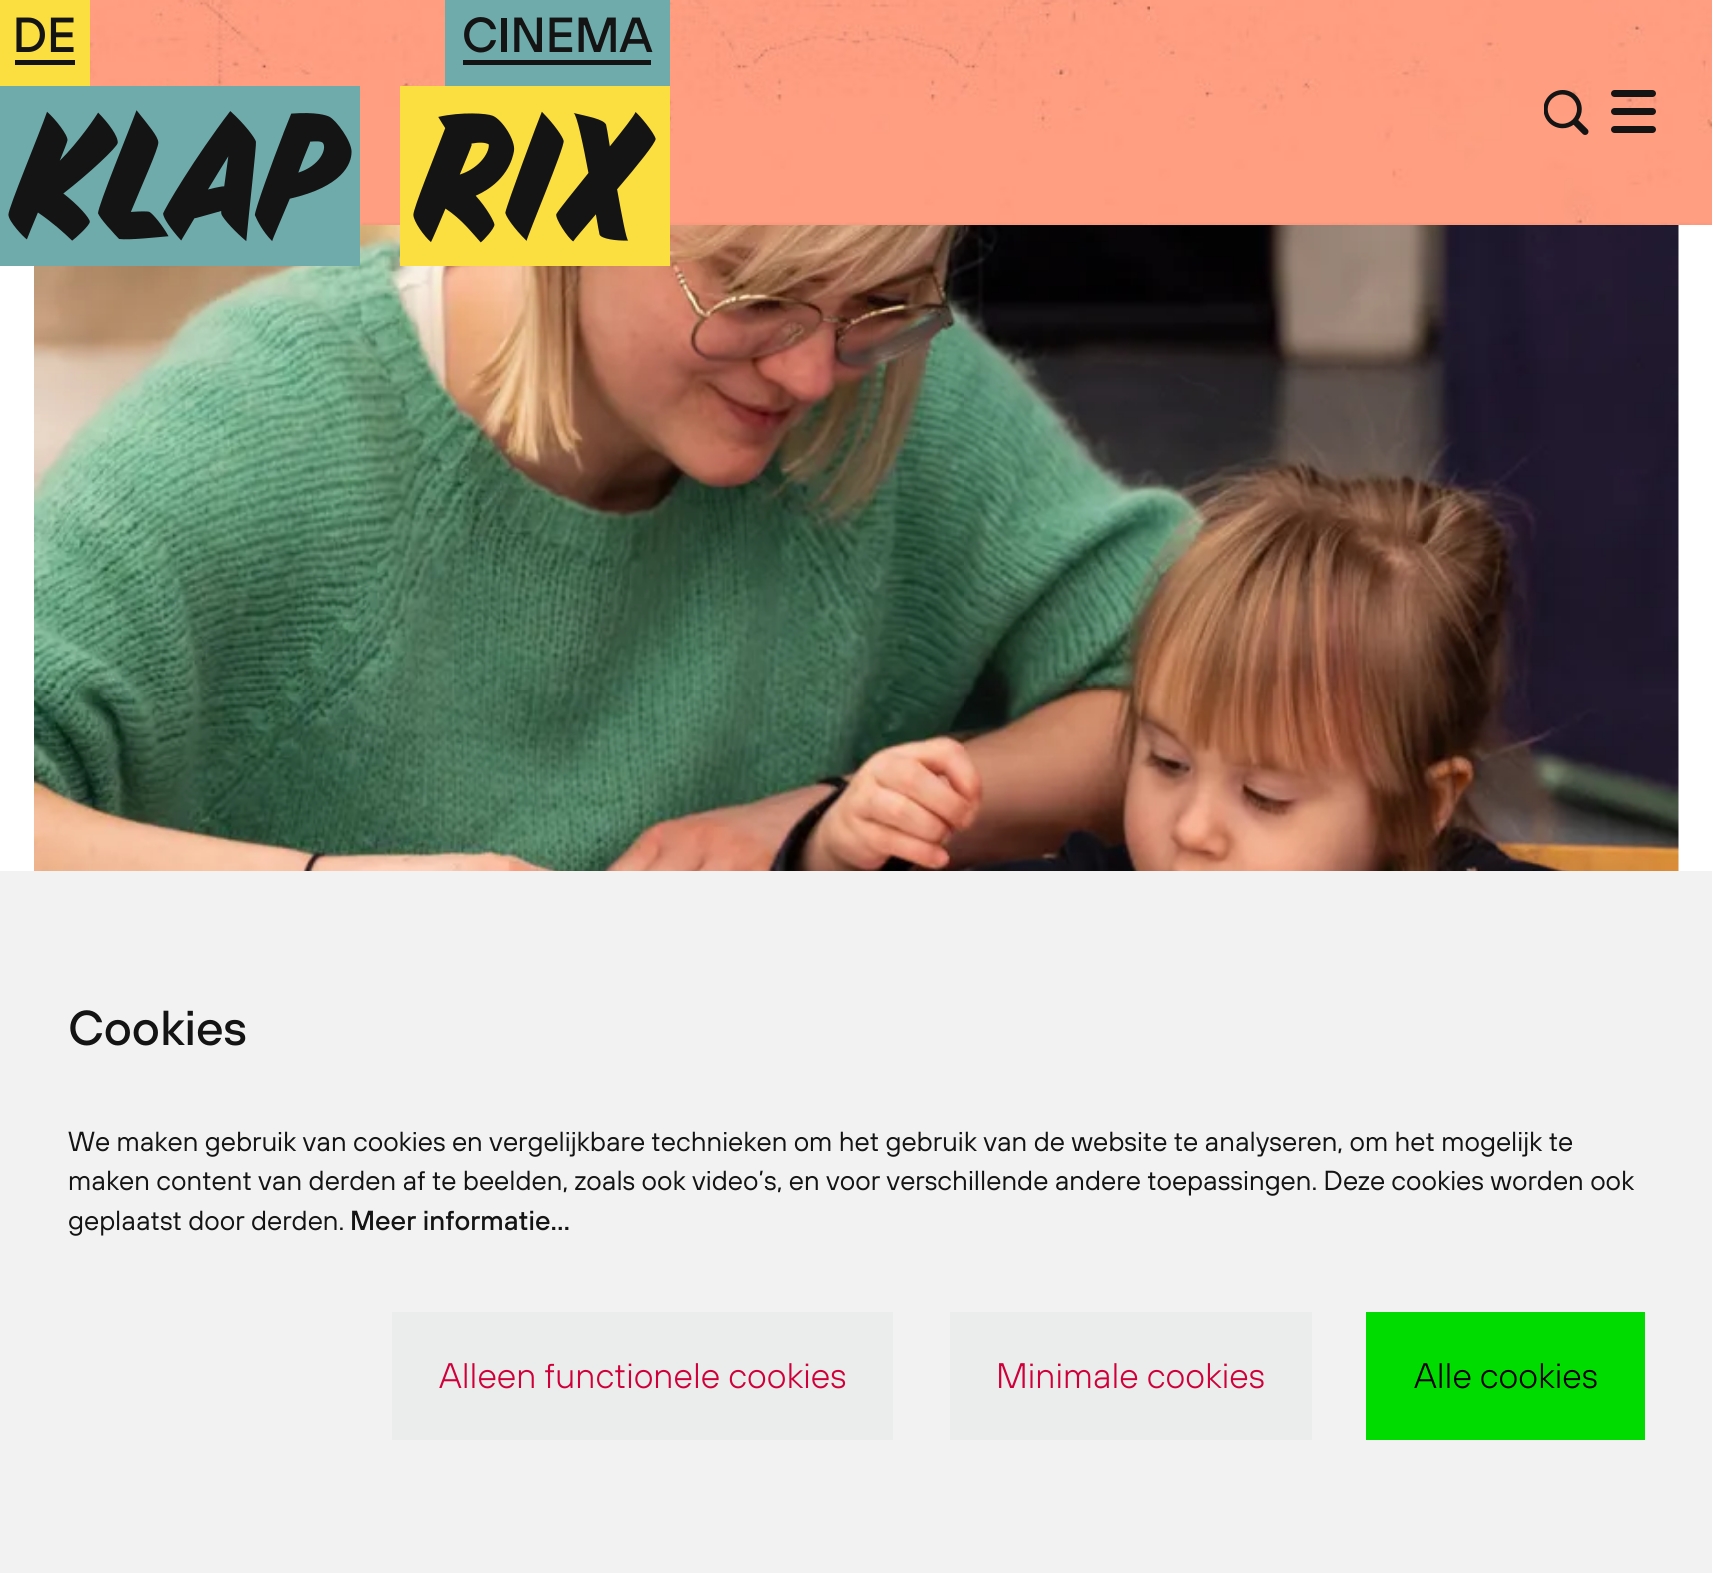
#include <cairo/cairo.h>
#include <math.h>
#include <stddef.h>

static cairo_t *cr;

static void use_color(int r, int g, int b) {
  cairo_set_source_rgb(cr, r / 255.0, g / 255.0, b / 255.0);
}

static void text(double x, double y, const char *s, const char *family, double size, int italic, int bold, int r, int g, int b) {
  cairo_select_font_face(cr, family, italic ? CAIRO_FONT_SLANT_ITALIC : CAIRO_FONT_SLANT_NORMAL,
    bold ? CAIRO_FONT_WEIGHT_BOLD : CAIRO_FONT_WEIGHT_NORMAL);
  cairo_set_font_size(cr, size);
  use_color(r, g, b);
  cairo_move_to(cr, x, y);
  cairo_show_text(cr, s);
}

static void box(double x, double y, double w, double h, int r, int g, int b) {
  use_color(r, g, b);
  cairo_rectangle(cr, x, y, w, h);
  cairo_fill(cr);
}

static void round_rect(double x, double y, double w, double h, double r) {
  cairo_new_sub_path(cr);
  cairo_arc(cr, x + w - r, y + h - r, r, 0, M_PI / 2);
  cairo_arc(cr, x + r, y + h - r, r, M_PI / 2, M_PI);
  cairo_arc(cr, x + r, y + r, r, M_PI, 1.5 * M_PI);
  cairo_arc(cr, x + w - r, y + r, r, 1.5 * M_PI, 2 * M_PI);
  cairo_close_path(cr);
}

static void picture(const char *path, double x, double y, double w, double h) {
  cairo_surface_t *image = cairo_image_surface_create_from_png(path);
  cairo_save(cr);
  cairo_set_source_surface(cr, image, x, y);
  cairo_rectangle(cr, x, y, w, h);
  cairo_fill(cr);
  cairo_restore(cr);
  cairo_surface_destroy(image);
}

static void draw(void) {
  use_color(255, 255, 255);
  cairo_paint(cr);
  picture("img_01.png", 90, 0, 1622, 225);
  picture("img_04.png", 34, 225, 1645, 646);
  picture("img_02.png", 0, 0, 670, 266);
  picture("img_03.png", 1544, 90, 45, 45);
  use_color(20, 20, 20);
  round_rect(1611, 90, 45, 7, 3.5);
  cairo_fill(cr);
  round_rect(1611, 108, 45, 7, 3.5);
  cairo_fill(cr);
  round_rect(1611, 126, 45, 7, 3.5);
  cairo_fill(cr);
  box(0, 871, 1712, 702, 242, 242, 242);
  box(392, 1312, 501, 128, 235, 236, 236);
  box(950, 1312, 362, 128, 235, 236, 236);
  box(1366, 1312, 279, 128, 0, 219, 0);
  text(68, 1045, "Cookies", "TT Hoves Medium", 49, 0, 0, 20, 20, 20);
  text(68, 1151, "We maken gebruik van cookies en vergelijkbare technieken om het gebruik van de website te analyseren, om het mogelijk te", "TT Hoves", 27.55, 0, 0, 20, 20, 20);
  text(68, 1190, "maken content van derden af te beelden, zoals ook video’s, en voor verschillende andere toepassingen. Deze cookies worden ook", "TT Hoves", 27.55, 0, 0, 20, 20, 20);
  text(68, 1230, "geplaatst door derden.", "TT Hoves", 27.55, 0, 0, 20, 20, 20);
  text(350, 1230, "Meer informatie…", "TT Hoves Medium", 27.55, 0, 0, 20, 20, 20);
  text(439, 1388, "Alleen functionele cookies", "TT Hoves Light", 35.5, 0, 0, 207, 0, 57);
  text(996, 1388, "Minimale cookies", "TT Hoves Light", 35.5, 0, 0, 207, 0, 57);
  text(1414, 1388, "Alle cookies", "TT Hoves Light", 35.5, 0, 0, 0, 0, 0);
}

int main(void) {
  cairo_surface_t *surface = cairo_image_surface_create(CAIRO_FORMAT_RGB24, 1712, 1573);
  cr = cairo_create(surface);
  cairo_font_options_t *options = cairo_font_options_create();
  cairo_font_options_set_hint_metrics(options, CAIRO_HINT_METRICS_OFF);
  cairo_font_options_set_hint_style(options, CAIRO_HINT_STYLE_NONE);
  cairo_set_font_options(cr, options);
  cairo_set_miter_limit(cr, 4);
  draw();
  cairo_surface_write_to_png(surface, "out.png");
  cairo_font_options_destroy(options);
  cairo_destroy(cr);
  cairo_surface_destroy(surface);
  return 0;
}
